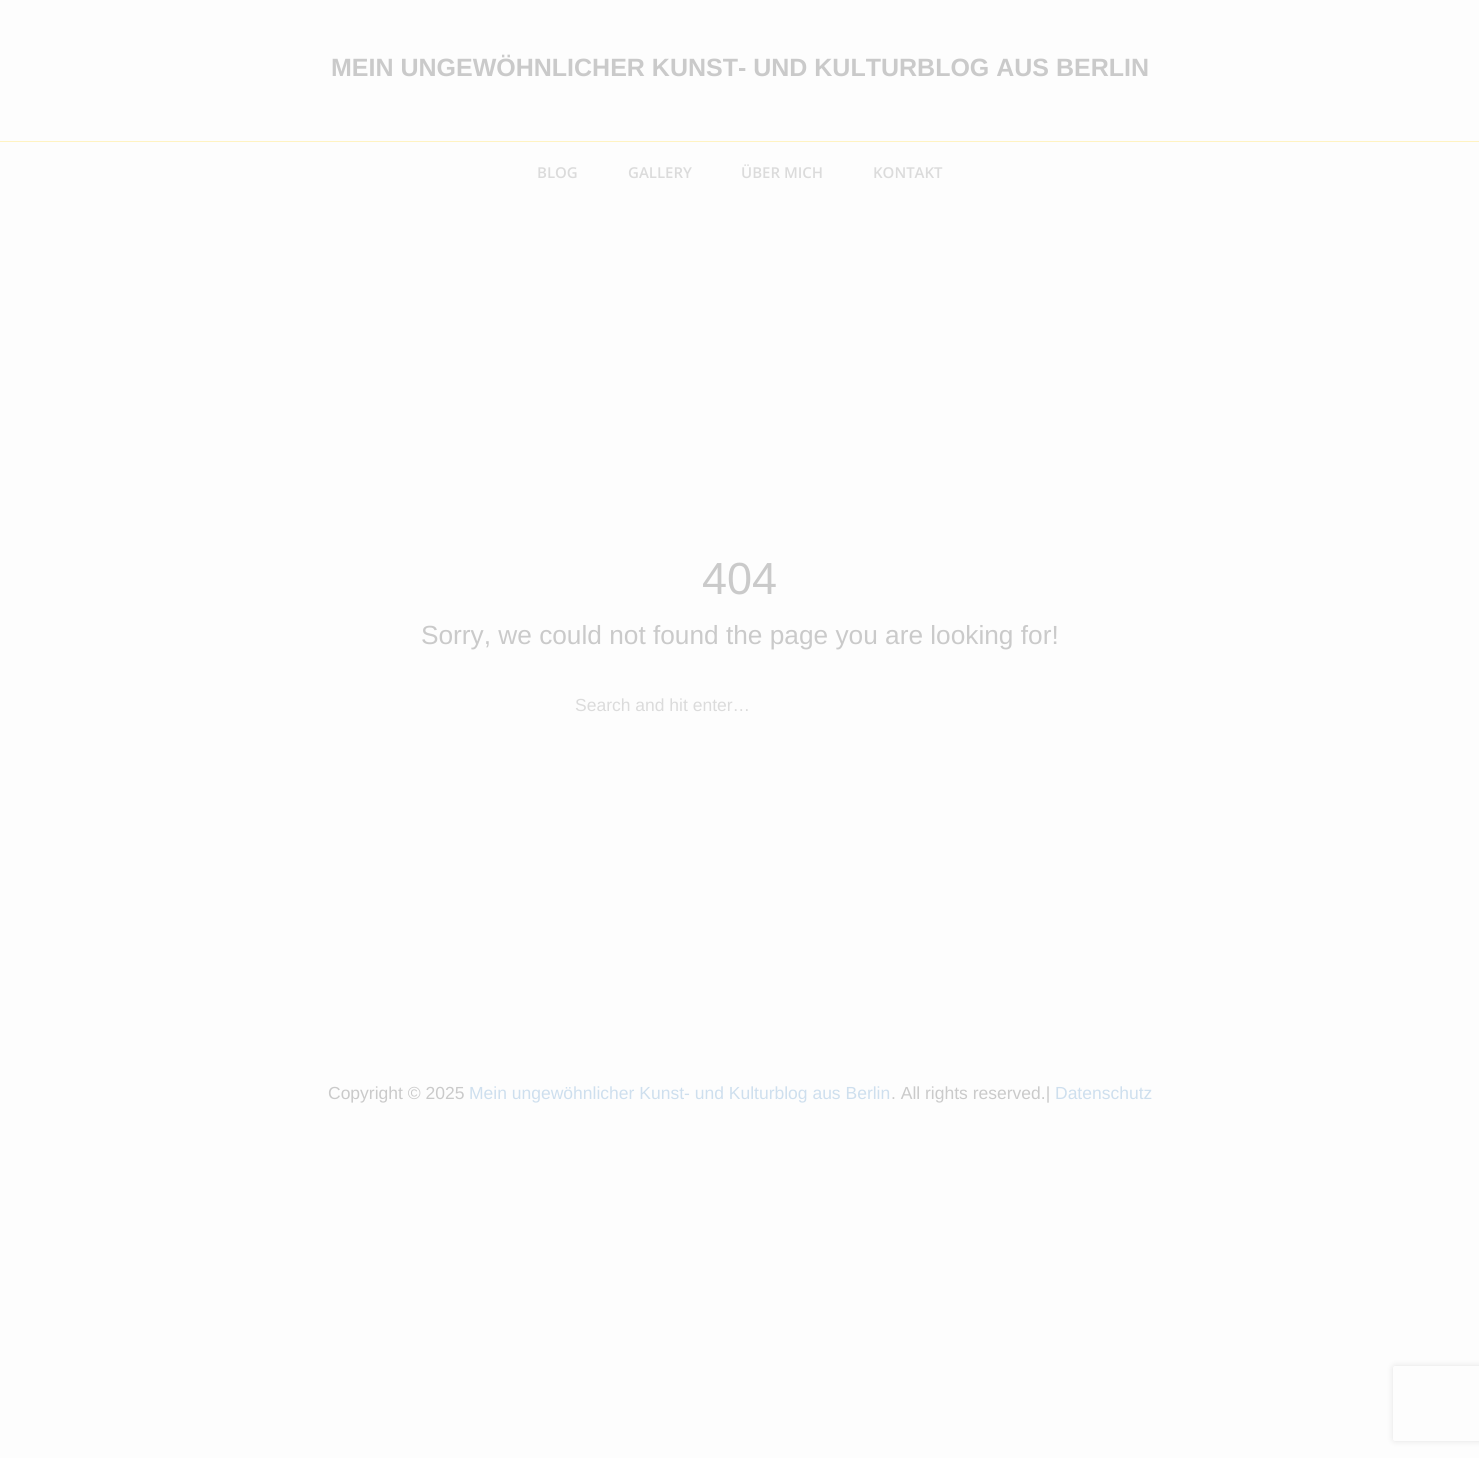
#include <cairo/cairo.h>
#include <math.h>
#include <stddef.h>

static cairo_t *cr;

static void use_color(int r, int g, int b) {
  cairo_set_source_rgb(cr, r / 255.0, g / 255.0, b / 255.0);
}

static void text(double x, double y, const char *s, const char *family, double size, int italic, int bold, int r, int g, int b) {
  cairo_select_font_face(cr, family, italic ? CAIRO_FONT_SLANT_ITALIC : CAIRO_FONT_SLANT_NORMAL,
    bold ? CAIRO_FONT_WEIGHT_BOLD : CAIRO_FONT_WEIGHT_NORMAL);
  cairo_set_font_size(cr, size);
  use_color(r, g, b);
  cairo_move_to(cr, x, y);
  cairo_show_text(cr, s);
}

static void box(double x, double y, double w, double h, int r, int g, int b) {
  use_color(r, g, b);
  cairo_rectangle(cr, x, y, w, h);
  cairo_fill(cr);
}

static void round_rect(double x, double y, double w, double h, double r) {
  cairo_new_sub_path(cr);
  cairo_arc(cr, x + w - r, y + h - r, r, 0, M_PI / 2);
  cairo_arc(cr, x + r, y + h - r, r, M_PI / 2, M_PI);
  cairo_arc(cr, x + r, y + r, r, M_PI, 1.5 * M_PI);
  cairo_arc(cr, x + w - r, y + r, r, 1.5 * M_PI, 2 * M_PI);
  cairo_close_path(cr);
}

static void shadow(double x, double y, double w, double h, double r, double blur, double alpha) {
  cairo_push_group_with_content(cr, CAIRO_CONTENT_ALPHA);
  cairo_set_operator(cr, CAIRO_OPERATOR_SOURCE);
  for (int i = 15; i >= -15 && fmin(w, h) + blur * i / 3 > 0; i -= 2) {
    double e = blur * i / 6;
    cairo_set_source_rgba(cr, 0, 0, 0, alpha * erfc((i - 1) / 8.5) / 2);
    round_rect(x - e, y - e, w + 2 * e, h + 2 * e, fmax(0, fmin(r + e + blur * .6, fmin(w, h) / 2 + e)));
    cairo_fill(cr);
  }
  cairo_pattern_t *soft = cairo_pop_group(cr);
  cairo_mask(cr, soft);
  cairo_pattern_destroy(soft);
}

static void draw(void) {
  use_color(253, 253, 253);
  cairo_paint(cr);
  box(0, 141, 1479, 1, 255, 243, 194);
  cairo_save(cr);
  cairo_set_fill_rule(cr, CAIRO_FILL_RULE_EVEN_ODD);
  cairo_new_path(cr);
  cairo_move_to(cr, 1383, 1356);
  cairo_line_to(cr, 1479, 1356);
  cairo_line_to(cr, 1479, 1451);
  cairo_line_to(cr, 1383, 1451);
  cairo_close_path(cr);
  cairo_move_to(cr, 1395.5, 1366);
  cairo_line_to(cr, 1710.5, 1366);
  cairo_curve_to(cr, 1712, 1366, 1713, 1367, 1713, 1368.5);
  cairo_line_to(cr, 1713, 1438.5);
  cairo_curve_to(cr, 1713, 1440, 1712, 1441, 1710.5, 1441);
  cairo_line_to(cr, 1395.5, 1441);
  cairo_curve_to(cr, 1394, 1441, 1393, 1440, 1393, 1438.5);
  cairo_line_to(cr, 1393, 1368.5);
  cairo_curve_to(cr, 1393, 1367, 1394, 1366, 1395.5, 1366);
  cairo_close_path(cr);
  cairo_clip(cr);
  use_color(225, 225, 225);
  shadow(1393, 1366, 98, 75, 2.5, 3, 1);
  cairo_restore(cr);
  text(331, 76, "MEIN UNGEWÖHNLICHER KUNST- UND KULTURBLOG AUS BERLIN", "Liberation Sans", 25, 0, 1, 202, 202, 202);
  text(537, 178, "BLOG", "Open Sans SemiBold", 15, 0, 0, 219, 219, 219);
  text(628, 178, "GALLERY", "Open Sans SemiBold", 15, 0, 0, 219, 219, 219);
  text(741, 178, "ÜBER MICH", "Open Sans SemiBold", 15, 0, 0, 219, 219, 219);
  text(873, 178, "KONTAKT", "Open Sans SemiBold", 15, 0, 0, 219, 219, 219);
  text(702, 594, "404", "Liberation Sans", 45, 0, 0, 202, 202, 202);
  text(421, 644, "Sorry, we could not found the page you are looking for!", "Liberation Sans", 26.25, 0, 0, 202, 202, 202);
  text(575, 711, "Search and hit enter…", "Liberation Sans", 17.5, 0, 0, 219, 219, 219);
  text(328, 1099, "Copyright © 2025", "Liberation Sans", 17.5, 0, 0, 202, 202, 202);
  text(469, 1099, "Mein ungewöhnlicher Kunst- und Kulturblog aus Berlin", "Liberation Sans", 17.5, 0, 0, 206, 223, 238);
  text(891, 1099, ". All rights reserved.|", "Liberation Sans", 17.5, 0, 0, 202, 202, 202);
  text(1055, 1099, "Datenschutz", "Liberation Sans", 17.5, 0, 0, 206, 223, 238);
}

int main(void) {
  cairo_surface_t *surface = cairo_image_surface_create(CAIRO_FORMAT_RGB24, 1479, 1458);
  cr = cairo_create(surface);
  cairo_font_options_t *options = cairo_font_options_create();
  cairo_font_options_set_hint_metrics(options, CAIRO_HINT_METRICS_OFF);
  cairo_font_options_set_hint_style(options, CAIRO_HINT_STYLE_NONE);
  cairo_set_font_options(cr, options);
  cairo_set_miter_limit(cr, 4);
  draw();
  cairo_surface_write_to_png(surface, "out.png");
  cairo_font_options_destroy(options);
  cairo_destroy(cr);
  cairo_surface_destroy(surface);
  return 0;
}
